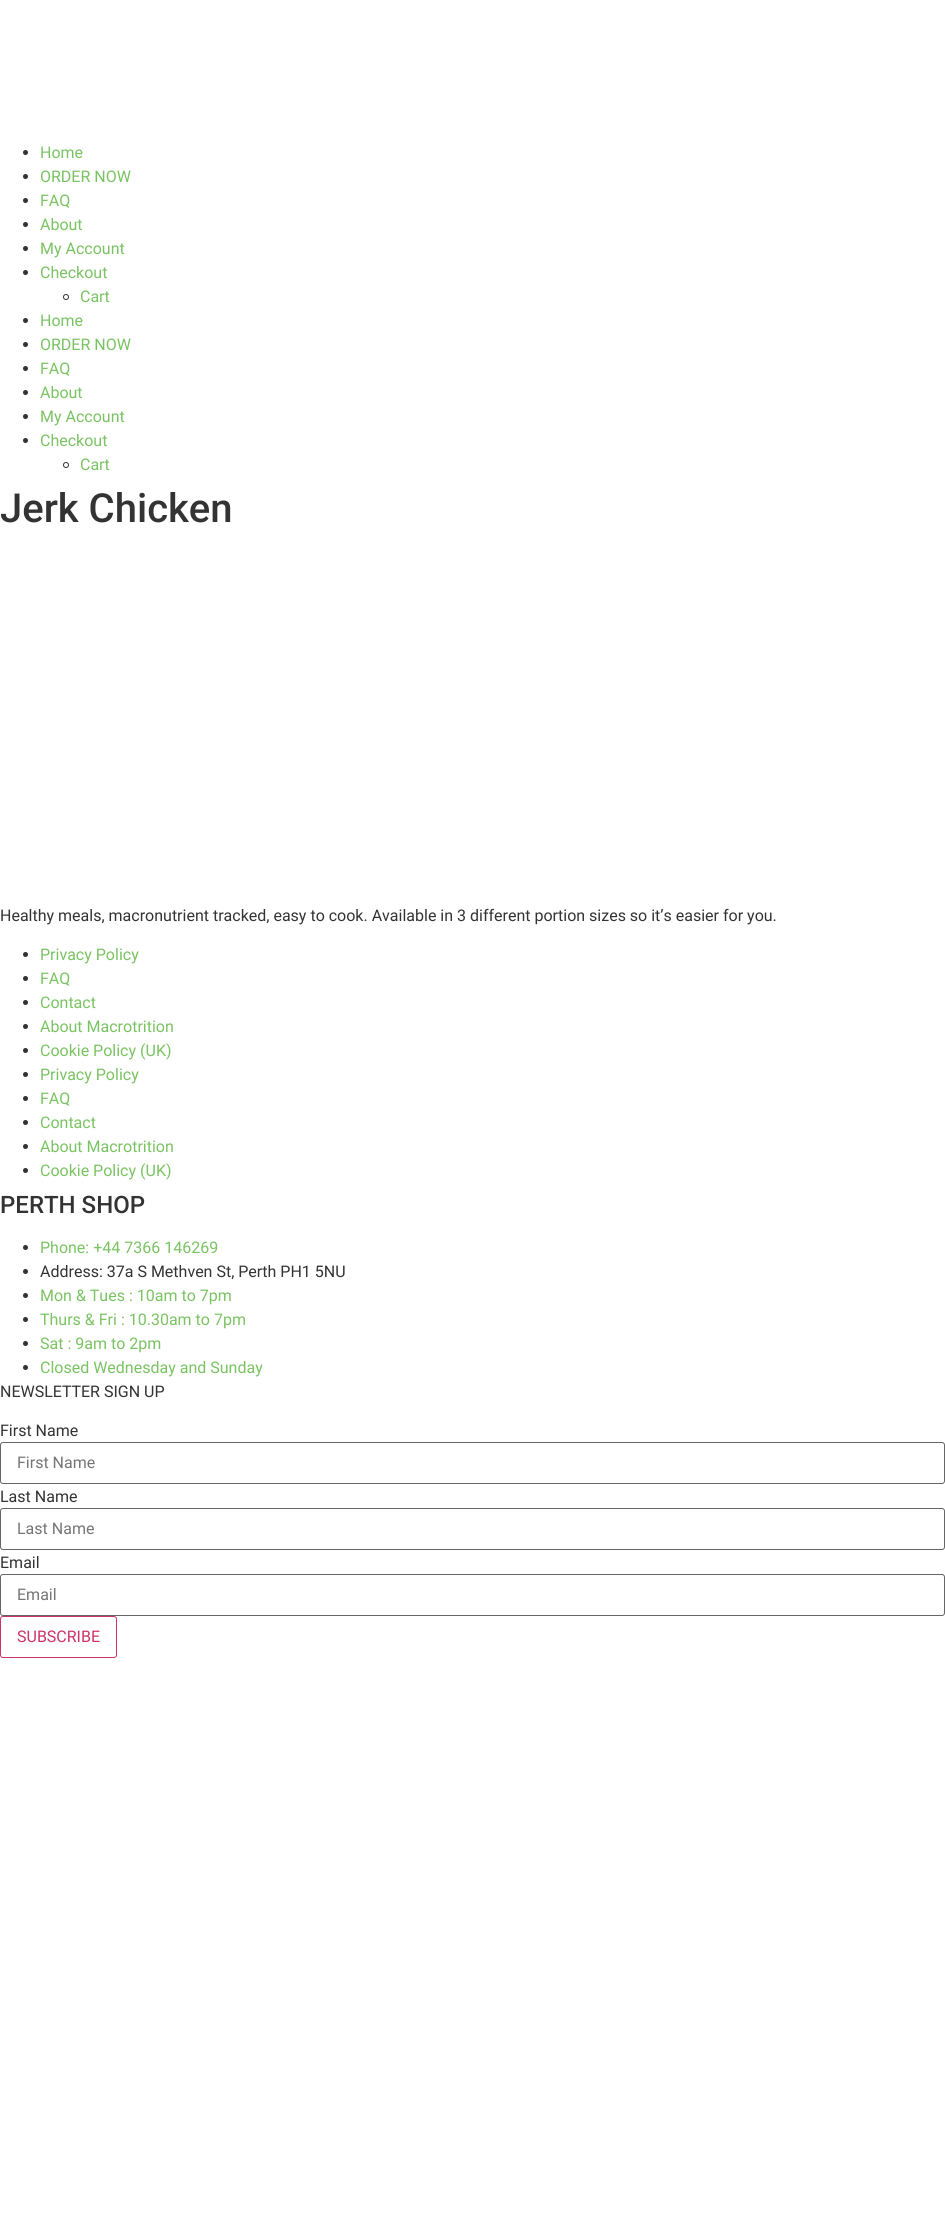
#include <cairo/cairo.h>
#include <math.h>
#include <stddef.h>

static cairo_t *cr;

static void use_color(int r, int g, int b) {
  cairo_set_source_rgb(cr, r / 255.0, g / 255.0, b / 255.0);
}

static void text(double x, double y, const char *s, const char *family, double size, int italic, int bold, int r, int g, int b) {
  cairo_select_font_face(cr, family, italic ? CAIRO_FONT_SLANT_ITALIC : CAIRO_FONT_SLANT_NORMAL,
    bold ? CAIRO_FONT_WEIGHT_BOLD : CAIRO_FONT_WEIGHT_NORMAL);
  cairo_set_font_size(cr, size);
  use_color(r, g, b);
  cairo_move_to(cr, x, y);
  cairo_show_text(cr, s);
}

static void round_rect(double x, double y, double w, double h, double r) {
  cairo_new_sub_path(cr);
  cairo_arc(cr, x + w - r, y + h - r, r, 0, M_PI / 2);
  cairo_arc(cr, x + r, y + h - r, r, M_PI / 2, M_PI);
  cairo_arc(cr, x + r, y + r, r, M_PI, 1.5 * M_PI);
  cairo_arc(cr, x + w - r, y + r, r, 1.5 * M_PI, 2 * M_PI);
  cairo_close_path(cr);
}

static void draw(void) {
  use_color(255, 255, 255);
  cairo_paint(cr);
  use_color(51, 51, 51);
  cairo_arc(cr, 25.5, 152.5, 2.5, 0, 2 * M_PI);
  cairo_fill(cr);
  cairo_arc(cr, 25.5, 176.5, 2.5, 0, 2 * M_PI);
  cairo_fill(cr);
  cairo_arc(cr, 25.5, 200.5, 2.5, 0, 2 * M_PI);
  cairo_fill(cr);
  cairo_arc(cr, 25.5, 224.5, 2.5, 0, 2 * M_PI);
  cairo_fill(cr);
  cairo_arc(cr, 25.5, 248.5, 2.5, 0, 2 * M_PI);
  cairo_fill(cr);
  cairo_arc(cr, 25.5, 272.5, 2.5, 0, 2 * M_PI);
  cairo_fill(cr);
  cairo_arc(cr, 66, 297, 2.5, 0, 2 * M_PI);
  cairo_set_line_width(cr, 1);
  cairo_stroke(cr);
  cairo_arc(cr, 25.5, 320.5, 2.5, 0, 2 * M_PI);
  cairo_fill(cr);
  cairo_arc(cr, 25.5, 344.5, 2.5, 0, 2 * M_PI);
  cairo_fill(cr);
  cairo_arc(cr, 25.5, 368.5, 2.5, 0, 2 * M_PI);
  cairo_fill(cr);
  cairo_arc(cr, 25.5, 392.5, 2.5, 0, 2 * M_PI);
  cairo_fill(cr);
  cairo_arc(cr, 25.5, 416.5, 2.5, 0, 2 * M_PI);
  cairo_fill(cr);
  cairo_arc(cr, 25.5, 440.5, 2.5, 0, 2 * M_PI);
  cairo_fill(cr);
  cairo_arc(cr, 66, 465, 2.5, 0, 2 * M_PI);
  cairo_stroke(cr);
  cairo_arc(cr, 25.5, 954.5, 2.5, 0, 2 * M_PI);
  cairo_fill(cr);
  cairo_arc(cr, 25.5, 978.5, 2.5, 0, 2 * M_PI);
  cairo_fill(cr);
  cairo_arc(cr, 25.5, 1002.5, 2.5, 0, 2 * M_PI);
  cairo_fill(cr);
  cairo_arc(cr, 25.5, 1026.5, 2.5, 0, 2 * M_PI);
  cairo_fill(cr);
  cairo_arc(cr, 25.5, 1050.5, 2.5, 0, 2 * M_PI);
  cairo_fill(cr);
  cairo_arc(cr, 25.5, 1074.5, 2.5, 0, 2 * M_PI);
  cairo_fill(cr);
  cairo_arc(cr, 25.5, 1098.5, 2.5, 0, 2 * M_PI);
  cairo_fill(cr);
  cairo_arc(cr, 25.5, 1122.5, 2.5, 0, 2 * M_PI);
  cairo_fill(cr);
  cairo_arc(cr, 25.5, 1146.5, 2.5, 0, 2 * M_PI);
  cairo_fill(cr);
  cairo_arc(cr, 25.5, 1170.5, 2.5, 0, 2 * M_PI);
  cairo_fill(cr);
  cairo_arc(cr, 25.5, 1247.5, 2.5, 0, 2 * M_PI);
  cairo_fill(cr);
  cairo_arc(cr, 25.5, 1271.5, 2.5, 0, 2 * M_PI);
  cairo_fill(cr);
  cairo_arc(cr, 25.5, 1295.5, 2.5, 0, 2 * M_PI);
  cairo_fill(cr);
  cairo_arc(cr, 25.5, 1319.5, 2.5, 0, 2 * M_PI);
  cairo_fill(cr);
  cairo_arc(cr, 25.5, 1343.5, 2.5, 0, 2 * M_PI);
  cairo_fill(cr);
  cairo_arc(cr, 25.5, 1367.5, 2.5, 0, 2 * M_PI);
  cairo_fill(cr);
  round_rect(0.5, 1442.5, 944, 41, 2.5);
  use_color(102, 102, 102);
  cairo_stroke(cr);
  round_rect(0.5, 1508.5, 944, 41, 2.5);
  cairo_stroke(cr);
  round_rect(0.5, 1574.5, 944, 41, 2.5);
  cairo_stroke(cr);
  round_rect(0.5, 1616.5, 116, 41, 2.5);
  use_color(204, 51, 102);
  cairo_stroke(cr);
  text(40, 158, "Home", "Roboto", 16, 0, 0, 122, 195, 98);
  text(40, 182, "ORDER NOW", "Roboto", 16, 0, 0, 122, 195, 98);
  text(40, 206, "FAQ", "Roboto", 16, 0, 0, 122, 195, 98);
  text(40, 230, "About", "Roboto", 16, 0, 0, 122, 195, 98);
  text(40, 254, "My Account", "Roboto", 16, 0, 0, 122, 195, 98);
  text(40, 278, "Checkout", "Roboto", 16, 0, 0, 122, 195, 98);
  text(80, 302, "Cart", "Roboto", 16, 0, 0, 122, 195, 98);
  text(40, 326, "Home", "Roboto", 16, 0, 0, 122, 195, 98);
  text(40, 350, "ORDER NOW", "Roboto", 16, 0, 0, 122, 195, 98);
  text(40, 374, "FAQ", "Roboto", 16, 0, 0, 122, 195, 98);
  text(40, 398, "About", "Roboto", 16, 0, 0, 122, 195, 98);
  text(40, 422, "My Account", "Roboto", 16, 0, 0, 122, 195, 98);
  text(40, 446, "Checkout", "Roboto", 16, 0, 0, 122, 195, 98);
  text(80, 470, "Cart", "Roboto", 16, 0, 0, 122, 195, 98);
  text(0, 522, "Jerk Chicken", "Roboto Medium", 40, 0, 0, 51, 51, 51);
  text(0, 921, "Healthy meals, macronutrient tracked, easy to cook. Available in 3 different portion sizes so it’s easier for you.", "Roboto", 16, 0, 0, 51, 51, 51);
  text(40, 960, "Privacy Policy", "Roboto", 16, 0, 0, 122, 195, 98);
  text(40, 984, "FAQ", "Roboto", 16, 0, 0, 122, 195, 98);
  text(40, 1008, "Contact", "Roboto", 16, 0, 0, 122, 195, 98);
  text(40, 1032, "About Macrotrition", "Roboto", 16, 0, 0, 122, 195, 98);
  text(40, 1056, "Cookie Policy (UK)", "Roboto", 16, 0, 0, 122, 195, 98);
  text(40, 1080, "Privacy Policy", "Roboto", 16, 0, 0, 122, 195, 98);
  text(40, 1104, "FAQ", "Roboto", 16, 0, 0, 122, 195, 98);
  text(40, 1128, "Contact", "Roboto", 16, 0, 0, 122, 195, 98);
  text(40, 1152, "About Macrotrition", "Roboto", 16, 0, 0, 122, 195, 98);
  text(40, 1176, "Cookie Policy (UK)", "Roboto", 16, 0, 0, 122, 195, 98);
  text(0, 1213, "PERTH SHOP", "Roboto Medium", 24, 0, 0, 51, 51, 51);
  text(40, 1253, "Phone: +44 7366 146269", "Roboto", 16, 0, 0, 122, 195, 98);
  text(40, 1277, "Address: 37a S Methven St, Perth PH1 5NU", "Roboto", 16, 0, 0, 51, 51, 51);
  text(40, 1301, "Mon & Tues : 10am to 7pm", "Roboto", 16, 0, 0, 122, 195, 98);
  text(40, 1325, "Thurs & Fri : 10.30am to 7pm", "Roboto", 16, 0, 0, 122, 195, 98);
  text(40, 1349, "Sat : 9am to 2pm", "Roboto", 16, 0, 0, 122, 195, 98);
  text(40, 1373, "Closed Wednesday and Sunday", "Roboto", 16, 0, 0, 122, 195, 98);
  text(0, 1397, "NEWSLETTER SIGN UP", "Roboto", 16, 0, 0, 51, 51, 51);
  text(0, 1436, "First Name", "Roboto", 16, 0, 0, 51, 51, 51);
  text(17, 1468, "First Name", "Roboto", 16, 0, 0, 117, 117, 117);
  text(0, 1502, "Last Name", "Roboto", 16, 0, 0, 51, 51, 51);
  text(17, 1534, "Last Name", "Roboto", 16, 0, 0, 117, 117, 117);
  text(0, 1568, "Email", "Roboto", 16, 0, 0, 51, 51, 51);
  text(17, 1600, "Email", "Roboto", 16, 0, 0, 117, 117, 117);
  text(17, 1642, "SUBSCRIBE", "Roboto", 16, 0, 0, 204, 51, 102);
}

int main(void) {
  cairo_surface_t *surface = cairo_image_surface_create(CAIRO_FORMAT_RGB24, 945, 2229);
  cr = cairo_create(surface);
  cairo_font_options_t *options = cairo_font_options_create();
  cairo_font_options_set_hint_metrics(options, CAIRO_HINT_METRICS_OFF);
  cairo_font_options_set_hint_style(options, CAIRO_HINT_STYLE_NONE);
  cairo_set_font_options(cr, options);
  cairo_set_miter_limit(cr, 4);
  draw();
  cairo_surface_write_to_png(surface, "out.png");
  cairo_font_options_destroy(options);
  cairo_destroy(cr);
  cairo_surface_destroy(surface);
  return 0;
}
